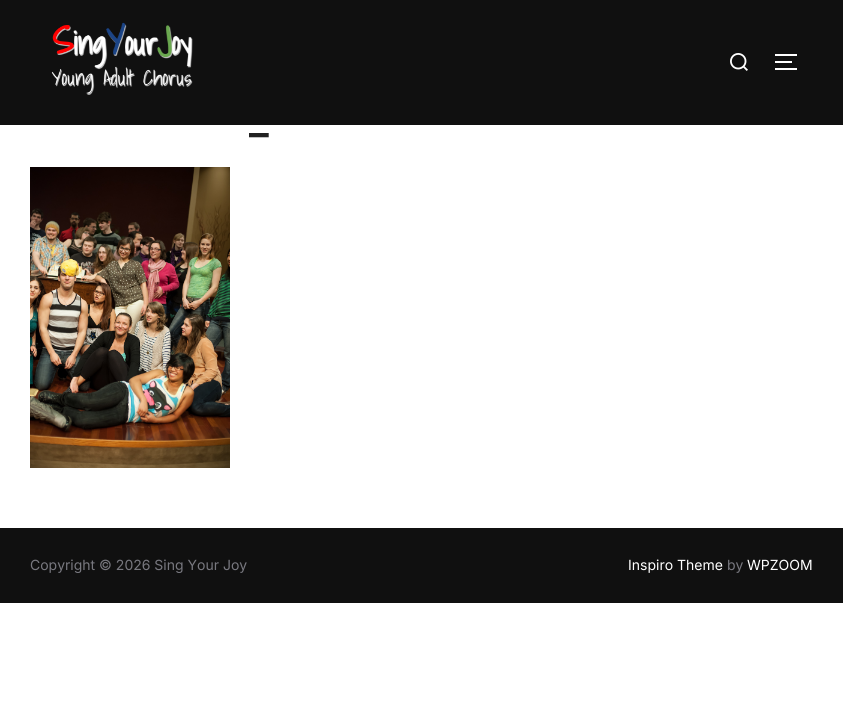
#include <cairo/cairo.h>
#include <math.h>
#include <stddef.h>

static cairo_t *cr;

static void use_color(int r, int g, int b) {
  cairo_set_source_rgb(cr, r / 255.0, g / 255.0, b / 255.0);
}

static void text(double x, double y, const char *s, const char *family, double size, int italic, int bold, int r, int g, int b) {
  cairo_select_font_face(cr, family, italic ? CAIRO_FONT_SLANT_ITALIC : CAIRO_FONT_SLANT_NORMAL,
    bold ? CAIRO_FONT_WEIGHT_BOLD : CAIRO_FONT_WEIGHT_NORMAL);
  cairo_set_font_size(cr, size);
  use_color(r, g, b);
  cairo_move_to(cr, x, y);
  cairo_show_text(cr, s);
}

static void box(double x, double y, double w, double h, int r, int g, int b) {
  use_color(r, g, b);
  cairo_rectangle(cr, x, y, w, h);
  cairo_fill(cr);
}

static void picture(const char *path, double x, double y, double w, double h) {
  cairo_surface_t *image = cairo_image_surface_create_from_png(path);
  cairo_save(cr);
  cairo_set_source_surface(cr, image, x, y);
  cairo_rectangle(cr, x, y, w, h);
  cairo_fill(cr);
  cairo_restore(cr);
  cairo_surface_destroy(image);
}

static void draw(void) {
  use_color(255, 255, 255);
  cairo_paint(cr);
  box(0, 0, 843, 125, 16, 16, 16);
  picture("img_01.png", 51, 22, 142, 73);
  picture("img_02.png", 730, 53, 18, 18);
  box(775, 54, 22, 2, 255, 255, 255);
  box(775, 61, 17, 2, 255, 255, 255);
  box(775, 68, 22, 2, 255, 255, 255);
  picture("img_03.png", 30, 167, 200, 301);
  box(0, 528, 843, 75, 16, 16, 16);
  text(249, 133, "_", "Inter SemiBold", 42, 0, 0, 34, 34, 34);
  text(30, 570, "Copyright © 2026 Sing Your Joy", "Inter", 14, 0, 0, 120, 120, 127);
  text(628, 570, "Inspiro Theme", "Inter", 14, 0, 0, 255, 255, 255);
  text(727, 570, "by", "Inter", 14, 0, 0, 120, 120, 127);
  text(747, 570, "WPZOOM", "Inter", 14, 0, 0, 255, 255, 255);
}

int main(void) {
  cairo_surface_t *surface = cairo_image_surface_create(CAIRO_FORMAT_RGB24, 843, 704);
  cr = cairo_create(surface);
  cairo_font_options_t *options = cairo_font_options_create();
  cairo_font_options_set_hint_metrics(options, CAIRO_HINT_METRICS_OFF);
  cairo_font_options_set_hint_style(options, CAIRO_HINT_STYLE_NONE);
  cairo_set_font_options(cr, options);
  cairo_set_miter_limit(cr, 4);
  draw();
  cairo_surface_write_to_png(surface, "out.png");
  cairo_font_options_destroy(options);
  cairo_destroy(cr);
  cairo_surface_destroy(surface);
  return 0;
}
